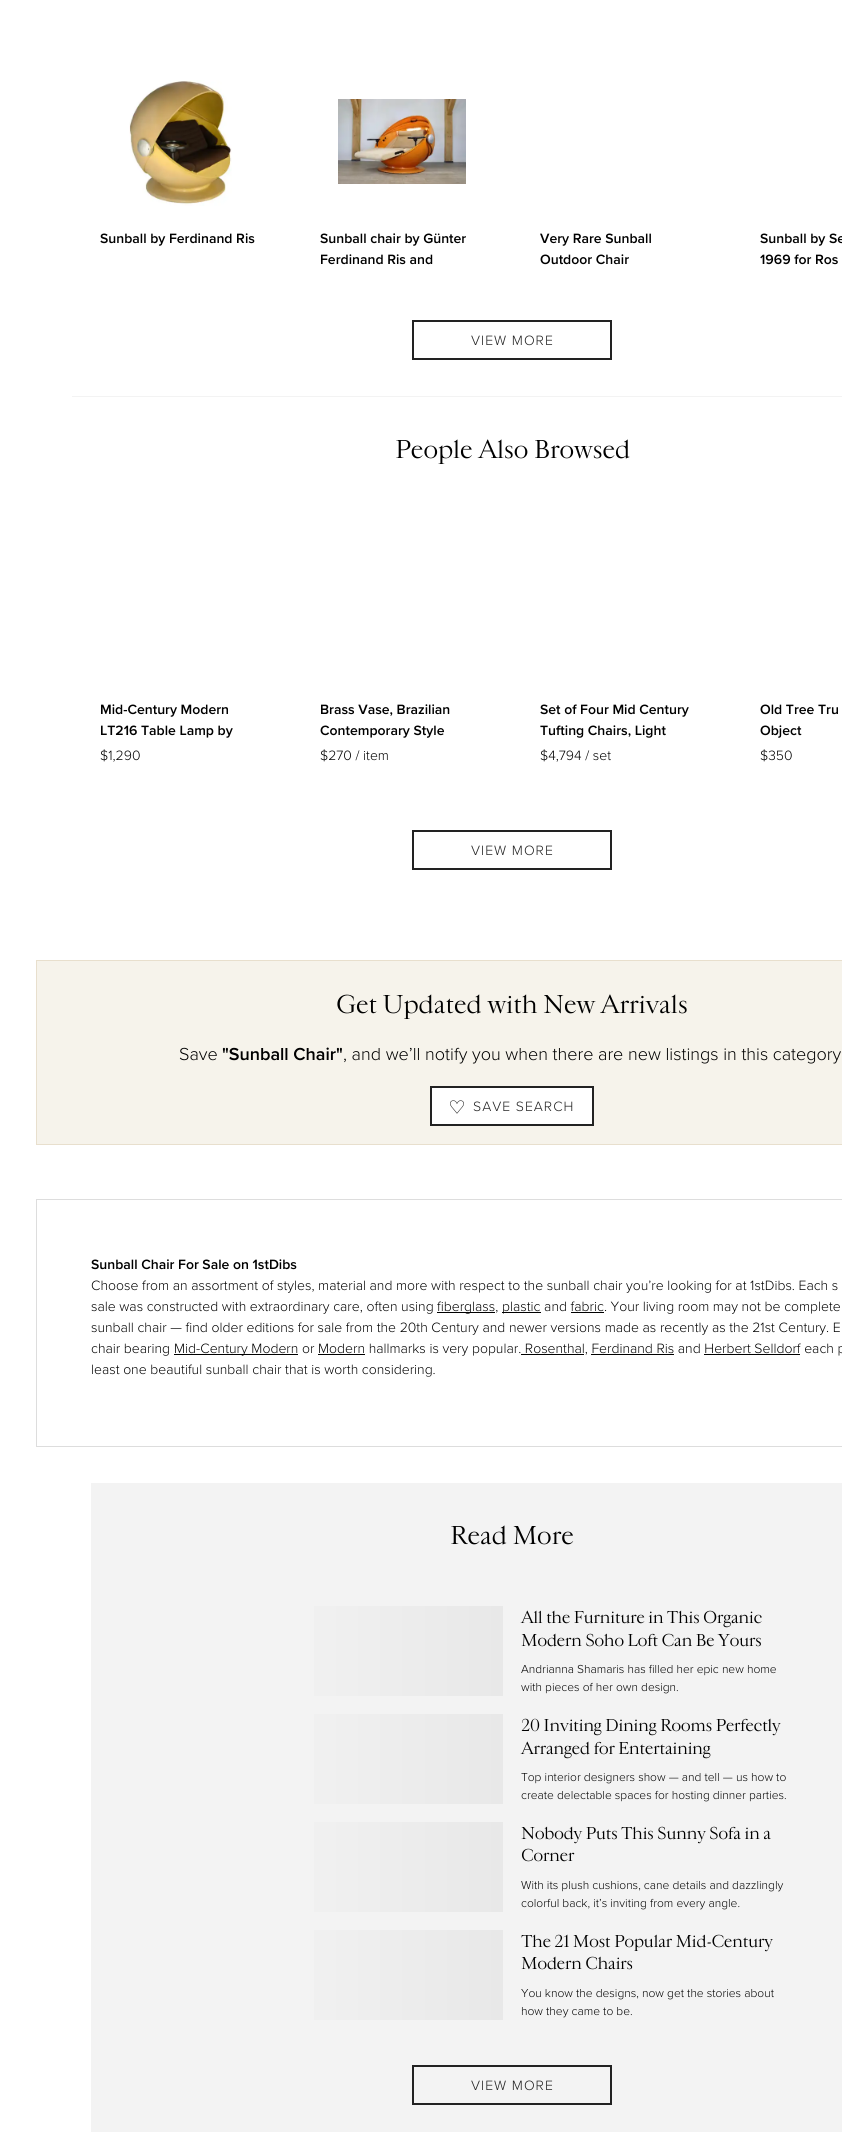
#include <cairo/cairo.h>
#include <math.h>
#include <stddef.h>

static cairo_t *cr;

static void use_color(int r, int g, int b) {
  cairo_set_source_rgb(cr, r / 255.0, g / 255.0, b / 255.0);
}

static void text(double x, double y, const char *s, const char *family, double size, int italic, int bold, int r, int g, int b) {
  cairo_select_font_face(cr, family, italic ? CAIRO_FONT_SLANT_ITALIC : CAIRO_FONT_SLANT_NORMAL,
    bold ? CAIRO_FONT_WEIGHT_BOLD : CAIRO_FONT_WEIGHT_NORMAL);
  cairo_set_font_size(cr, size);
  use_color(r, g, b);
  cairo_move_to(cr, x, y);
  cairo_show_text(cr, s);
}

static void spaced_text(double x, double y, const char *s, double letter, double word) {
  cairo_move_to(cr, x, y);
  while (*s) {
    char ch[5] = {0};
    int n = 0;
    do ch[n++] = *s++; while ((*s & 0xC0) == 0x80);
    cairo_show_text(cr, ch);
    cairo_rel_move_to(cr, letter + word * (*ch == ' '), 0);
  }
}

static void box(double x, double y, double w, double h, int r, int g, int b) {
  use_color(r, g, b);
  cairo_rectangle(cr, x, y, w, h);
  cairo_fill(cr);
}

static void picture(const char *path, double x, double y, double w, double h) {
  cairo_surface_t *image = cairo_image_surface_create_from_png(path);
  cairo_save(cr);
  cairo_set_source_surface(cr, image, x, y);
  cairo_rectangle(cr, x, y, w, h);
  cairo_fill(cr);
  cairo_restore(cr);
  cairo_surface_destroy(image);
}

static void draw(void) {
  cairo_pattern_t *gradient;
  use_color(255, 255, 255);
  cairo_paint(cr);
  picture("img_01.png", 129, 80, 103, 126);
  picture("img_02.png", 338, 99, 128, 85);
  cairo_rectangle(cr, 413, 321, 198, 38);
  use_color(34, 34, 34);
  cairo_stroke(cr);
  box(72, 396, 770, 1, 243, 243, 243);
  cairo_rectangle(cr, 413, 831, 198, 38);
  use_color(34, 34, 34);
  cairo_stroke(cr);
  use_color(246, 243, 235);
  cairo_rectangle(cr, 36.5, 960.5, 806, 184);
  cairo_fill_preserve(cr);
  use_color(232, 223, 205);
  cairo_set_line_width(cr, 1);
  cairo_stroke(cr);
  use_color(255, 255, 255);
  cairo_rectangle(cr, 431, 1087, 162, 38);
  cairo_fill_preserve(cr);
  use_color(34, 34, 34);
  cairo_set_line_width(cr, 2);
  cairo_stroke(cr);
  picture("img_03.png", 450, 1100, 14, 14);
  cairo_rectangle(cr, 36.5, 1199.5, 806, 247);
  use_color(221, 221, 221);
  cairo_set_line_width(cr, 1);
  cairo_stroke(cr);
  box(437, 1312, 58, 1, 0, 0, 0);
  box(502, 1312, 39, 1, 0, 0, 0);
  box(571, 1312, 33, 1, 0, 0, 0);
  box(174, 1354, 124, 1, 0, 0, 0);
  box(318, 1354, 47, 1, 0, 0, 0);
  box(521, 1354, 63, 1, 0, 0, 0);
  box(591, 1354, 83, 1, 0, 0, 0);
  box(704, 1354, 96, 1, 0, 0, 0);
  box(91, 1483, 751, 649, 243, 243, 243);
  gradient = cairo_pattern_create_linear(236, 1656, 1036, 1656);
  cairo_pattern_add_color_stop_rgba(gradient, 0, 0.957, 0.957, 0.957, 1);
  cairo_pattern_add_color_stop_rgba(gradient, 0.5, 0.886, 0.886, 0.886, 1);
  cairo_pattern_add_color_stop_rgba(gradient, 0.51, 0.886, 0.886, 0.886, 1);
  cairo_pattern_add_color_stop_rgba(gradient, 1, 0.957, 0.957, 0.957, 1);
  cairo_set_source(cr, gradient);
  cairo_pattern_destroy(gradient);
  cairo_rectangle(cr, 314, 1606, 189, 90);
  cairo_fill(cr);
  gradient = cairo_pattern_create_linear(236, 1764, 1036, 1764);
  cairo_pattern_add_color_stop_rgba(gradient, 0, 0.957, 0.957, 0.957, 1);
  cairo_pattern_add_color_stop_rgba(gradient, 0.5, 0.886, 0.886, 0.886, 1);
  cairo_pattern_add_color_stop_rgba(gradient, 0.51, 0.886, 0.886, 0.886, 1);
  cairo_pattern_add_color_stop_rgba(gradient, 1, 0.957, 0.957, 0.957, 1);
  cairo_set_source(cr, gradient);
  cairo_pattern_destroy(gradient);
  cairo_rectangle(cr, 314, 1714, 189, 90);
  cairo_fill(cr);
  gradient = cairo_pattern_create_linear(236, 1872, 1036, 1872);
  cairo_pattern_add_color_stop_rgba(gradient, 0, 0.957, 0.957, 0.957, 1);
  cairo_pattern_add_color_stop_rgba(gradient, 0.5, 0.886, 0.886, 0.886, 1);
  cairo_pattern_add_color_stop_rgba(gradient, 0.51, 0.886, 0.886, 0.886, 1);
  cairo_pattern_add_color_stop_rgba(gradient, 1, 0.957, 0.957, 0.957, 1);
  cairo_set_source(cr, gradient);
  cairo_pattern_destroy(gradient);
  cairo_rectangle(cr, 314, 1822, 189, 90);
  cairo_fill(cr);
  gradient = cairo_pattern_create_linear(236, 1980, 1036, 1980);
  cairo_pattern_add_color_stop_rgba(gradient, 0, 0.957, 0.957, 0.957, 1);
  cairo_pattern_add_color_stop_rgba(gradient, 0.5, 0.886, 0.886, 0.886, 1);
  cairo_pattern_add_color_stop_rgba(gradient, 0.51, 0.886, 0.886, 0.886, 1);
  cairo_pattern_add_color_stop_rgba(gradient, 1, 0.957, 0.957, 0.957, 1);
  cairo_set_source(cr, gradient);
  cairo_pattern_destroy(gradient);
  cairo_rectangle(cr, 314, 1930, 189, 90);
  cairo_fill(cr);
  cairo_rectangle(cr, 413, 2066, 198, 38);
  use_color(34, 34, 34);
  cairo_set_line_width(cr, 2);
  cairo_stroke(cr);
  text(100, 243, "Sunball by Ferdinand Ris", "Proxima Nova SemiBold", 14, 0, 0, 0, 0, 0);
  text(320, 243, "Sunball chair by Günter", "Proxima Nova SemiBold", 14, 0, 0, 0, 0, 0);
  text(320, 264, "Ferdinand Ris and", "Proxima Nova SemiBold", 14, 0, 0, 0, 0, 0);
  text(540, 243, "Very Rare Sunball", "Proxima Nova SemiBold", 14, 0, 0, 0, 0, 0);
  text(540, 264, "Outdoor Chair", "Proxima Nova SemiBold", 14, 0, 0, 0, 0, 0);
  text(760, 243, "Sunball by Se", "Proxima Nova SemiBold", 14, 0, 0, 0, 0, 0);
  text(760, 264, "1969 for Ros", "Proxima Nova SemiBold", 14, 0, 0, 0, 0, 0);
  cairo_select_font_face(cr, "Proxima Nova Light", CAIRO_FONT_SLANT_NORMAL, CAIRO_FONT_WEIGHT_NORMAL);
  use_color(34, 34, 34);
  spaced_text(471, 345, "VIEW MORE", 1, 0);
  cairo_select_font_face(cr, "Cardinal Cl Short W", CAIRO_FONT_SLANT_NORMAL, CAIRO_FONT_WEIGHT_NORMAL);
  cairo_set_font_size(cr, 24);
  use_color(0, 0, 0);
  spaced_text(395, 458, "People Also Browsed", -0.5, 0);
  text(100, 714, "Mid-Century Modern", "Proxima Nova SemiBold", 14, 0, 0, 0, 0, 0);
  text(100, 735, "LT216 Table Lamp by", "Proxima Nova SemiBold", 14, 0, 0, 0, 0, 0);
  text(100, 760, "$1,290", "Proxima Nova Light", 14, 0, 0, 0, 0, 0);
  text(320, 714, "Brass Vase, Brazilian", "Proxima Nova SemiBold", 14, 0, 0, 0, 0, 0);
  text(320, 735, "Contemporary Style", "Proxima Nova SemiBold", 14, 0, 0, 0, 0, 0);
  text(320, 760, "$270 / item", "Proxima Nova Light", 14, 0, 0, 0, 0, 0);
  text(540, 714, "Set of Four Mid Century", "Proxima Nova SemiBold", 14, 0, 0, 0, 0, 0);
  text(540, 735, "Tufting Chairs, Light", "Proxima Nova SemiBold", 14, 0, 0, 0, 0, 0);
  text(540, 760, "$4,794 / set", "Proxima Nova Light", 14, 0, 0, 0, 0, 0);
  text(760, 714, "Old Tree Tru", "Proxima Nova SemiBold", 14, 0, 0, 0, 0, 0);
  text(760, 735, "Object", "Proxima Nova SemiBold", 14, 0, 0, 0, 0, 0);
  text(760, 760, "$350", "Proxima Nova Light", 14, 0, 0, 0, 0, 0);
  use_color(34, 34, 34);
  spaced_text(471, 855, "VIEW MORE", 1, 0);
  cairo_select_font_face(cr, "Cardinal Cl Short W", CAIRO_FONT_SLANT_NORMAL, CAIRO_FONT_WEIGHT_NORMAL);
  cairo_set_font_size(cr, 24);
  use_color(0, 0, 0);
  spaced_text(336, 1013, "Get Updated with New Arrivals", -0.5, 0);
  text(179, 1060, "Save", "Proxima Nova Light", 18, 0, 0, 0, 0, 0);
  text(222, 1060, "\"Sunball Chair\"", "Proxima Nova SemiBold", 18, 0, 0, 0, 0, 0);
  text(343, 1060, ", and we’ll notify you when there are new listings in this category", "Proxima Nova Light", 18, 0, 0, 0, 0, 0);
  cairo_set_font_size(cr, 14);
  use_color(34, 34, 34);
  spaced_text(473, 1111, "SAVE SEARCH", 1, 0);
  text(91, 1269, "Sunball Chair For Sale on 1stDibs", "Proxima Nova SemiBold", 14, 0, 0, 0, 0, 0);
  text(91, 1290, "Choose from an assortment of styles, material and more with respect to the sunball chair you’re looking for at 1stDibs. Each s", "Proxima Nova Light", 14, 0, 0, 0, 0, 0);
  text(91, 1311, "sale was constructed with extraordinary care, often using", "Proxima Nova Light", 14, 0, 0, 0, 0, 0);
  text(437, 1311, "fiberglass,", "Proxima Nova Light", 14, 0, 0, 0, 0, 0);
  text(502, 1311, "plastic and fabric. Your living room may not be complete", "Proxima Nova Light", 14, 0, 0, 0, 0, 0);
  text(91, 1332, "sunball chair — find older editions for sale from the 20th Century and newer versions made as recently as the 21st Century. E", "Proxima Nova Light", 14, 0, 0, 0, 0, 0);
  text(91, 1353, "chair bearing", "Proxima Nova Light", 14, 0, 0, 0, 0, 0);
  text(174, 1353, "Mid-Century Modern or Modern hallmarks is very popular. Rosenthal, Ferdinand Ris and Herbert Selldorf each p", "Proxima Nova Light", 14, 0, 0, 0, 0, 0);
  text(91, 1374, "least one beautiful sunball chair that is worth considering.", "Proxima Nova Light", 14, 0, 0, 0, 0, 0);
  gradient = cairo_pattern_create_linear(512, 1374, 512, 1401);
  cairo_pattern_add_color_stop_rgba(gradient, 0, 1, 1, 1, 0);
  cairo_pattern_add_color_stop_rgba(gradient, 0.5, 1, 1, 1, 0.85);
  cairo_pattern_add_color_stop_rgba(gradient, 1, 1, 1, 1, 1);
  cairo_set_source(cr, gradient);
  cairo_pattern_destroy(gradient);
  cairo_rectangle(cr, 426, 1374, 6, 3);
  cairo_fill(cr);
  cairo_select_font_face(cr, "Cardinal Cl Short W", CAIRO_FONT_SLANT_NORMAL, CAIRO_FONT_WEIGHT_NORMAL);
  cairo_set_font_size(cr, 24);
  use_color(0, 0, 0);
  spaced_text(450, 1544, "Read More", -0.5, 0);
  cairo_set_font_size(cr, 16);
  spaced_text(521, 1623, "All the Furniture in This Organic", -0.5, 0);
  spaced_text(521, 1646, "Modern Soho Loft Can Be Yours", -0.5, 0);
  text(521, 1673, "Andrianna Shamaris has filled her epic new home", "Proxima Nova Light", 12, 0, 0, 0, 0, 0);
  text(521, 1691, "with pieces of her own design.", "Proxima Nova Light", 12, 0, 0, 0, 0, 0);
  cairo_select_font_face(cr, "Cardinal Cl Short W", CAIRO_FONT_SLANT_NORMAL, CAIRO_FONT_WEIGHT_NORMAL);
  cairo_set_font_size(cr, 16);
  spaced_text(521, 1731, "20 Inviting Dining Rooms Perfectly", -0.5, 0);
  spaced_text(521, 1754, "Arranged for Entertaining", -0.5, 0);
  text(521, 1781, "Top interior designers show — and tell — us how to", "Proxima Nova Light", 12, 0, 0, 0, 0, 0);
  text(521, 1799, "create delectable spaces for hosting dinner parties.", "Proxima Nova Light", 12, 0, 0, 0, 0, 0);
  cairo_select_font_face(cr, "Cardinal Cl Short W", CAIRO_FONT_SLANT_NORMAL, CAIRO_FONT_WEIGHT_NORMAL);
  cairo_set_font_size(cr, 16);
  spaced_text(521, 1839, "Nobody Puts This Sunny Sofa in a", -0.5, 0);
  spaced_text(521, 1861, "Corner", -0.5, 0);
  text(521, 1889, "With its plush cushions, cane details and dazzlingly", "Proxima Nova Light", 12, 0, 0, 0, 0, 0);
  text(521, 1907, "colorful back, it’s inviting from every angle.", "Proxima Nova Light", 12, 0, 0, 0, 0, 0);
  cairo_select_font_face(cr, "Cardinal Cl Short W", CAIRO_FONT_SLANT_NORMAL, CAIRO_FONT_WEIGHT_NORMAL);
  cairo_set_font_size(cr, 16);
  spaced_text(521, 1947, "The 21 Most Popular Mid-Century", -0.5, 0);
  spaced_text(521, 1969, "Modern Chairs", -0.5, 0);
  text(521, 1997, "You know the designs, now get the stories about", "Proxima Nova Light", 12, 0, 0, 0, 0, 0);
  text(521, 2015, "how they came to be.", "Proxima Nova Light", 12, 0, 0, 0, 0, 0);
  cairo_set_font_size(cr, 14);
  use_color(34, 34, 34);
  spaced_text(471, 2090, "VIEW MORE", 1, 0);
}

int main(void) {
  cairo_surface_t *surface = cairo_image_surface_create(CAIRO_FORMAT_RGB24, 842, 2132);
  cr = cairo_create(surface);
  cairo_font_options_t *options = cairo_font_options_create();
  cairo_font_options_set_hint_metrics(options, CAIRO_HINT_METRICS_OFF);
  cairo_font_options_set_hint_style(options, CAIRO_HINT_STYLE_NONE);
  cairo_set_font_options(cr, options);
  cairo_set_miter_limit(cr, 4);
  draw();
  cairo_surface_write_to_png(surface, "out.png");
  cairo_font_options_destroy(options);
  cairo_destroy(cr);
  cairo_surface_destroy(surface);
  return 0;
}
